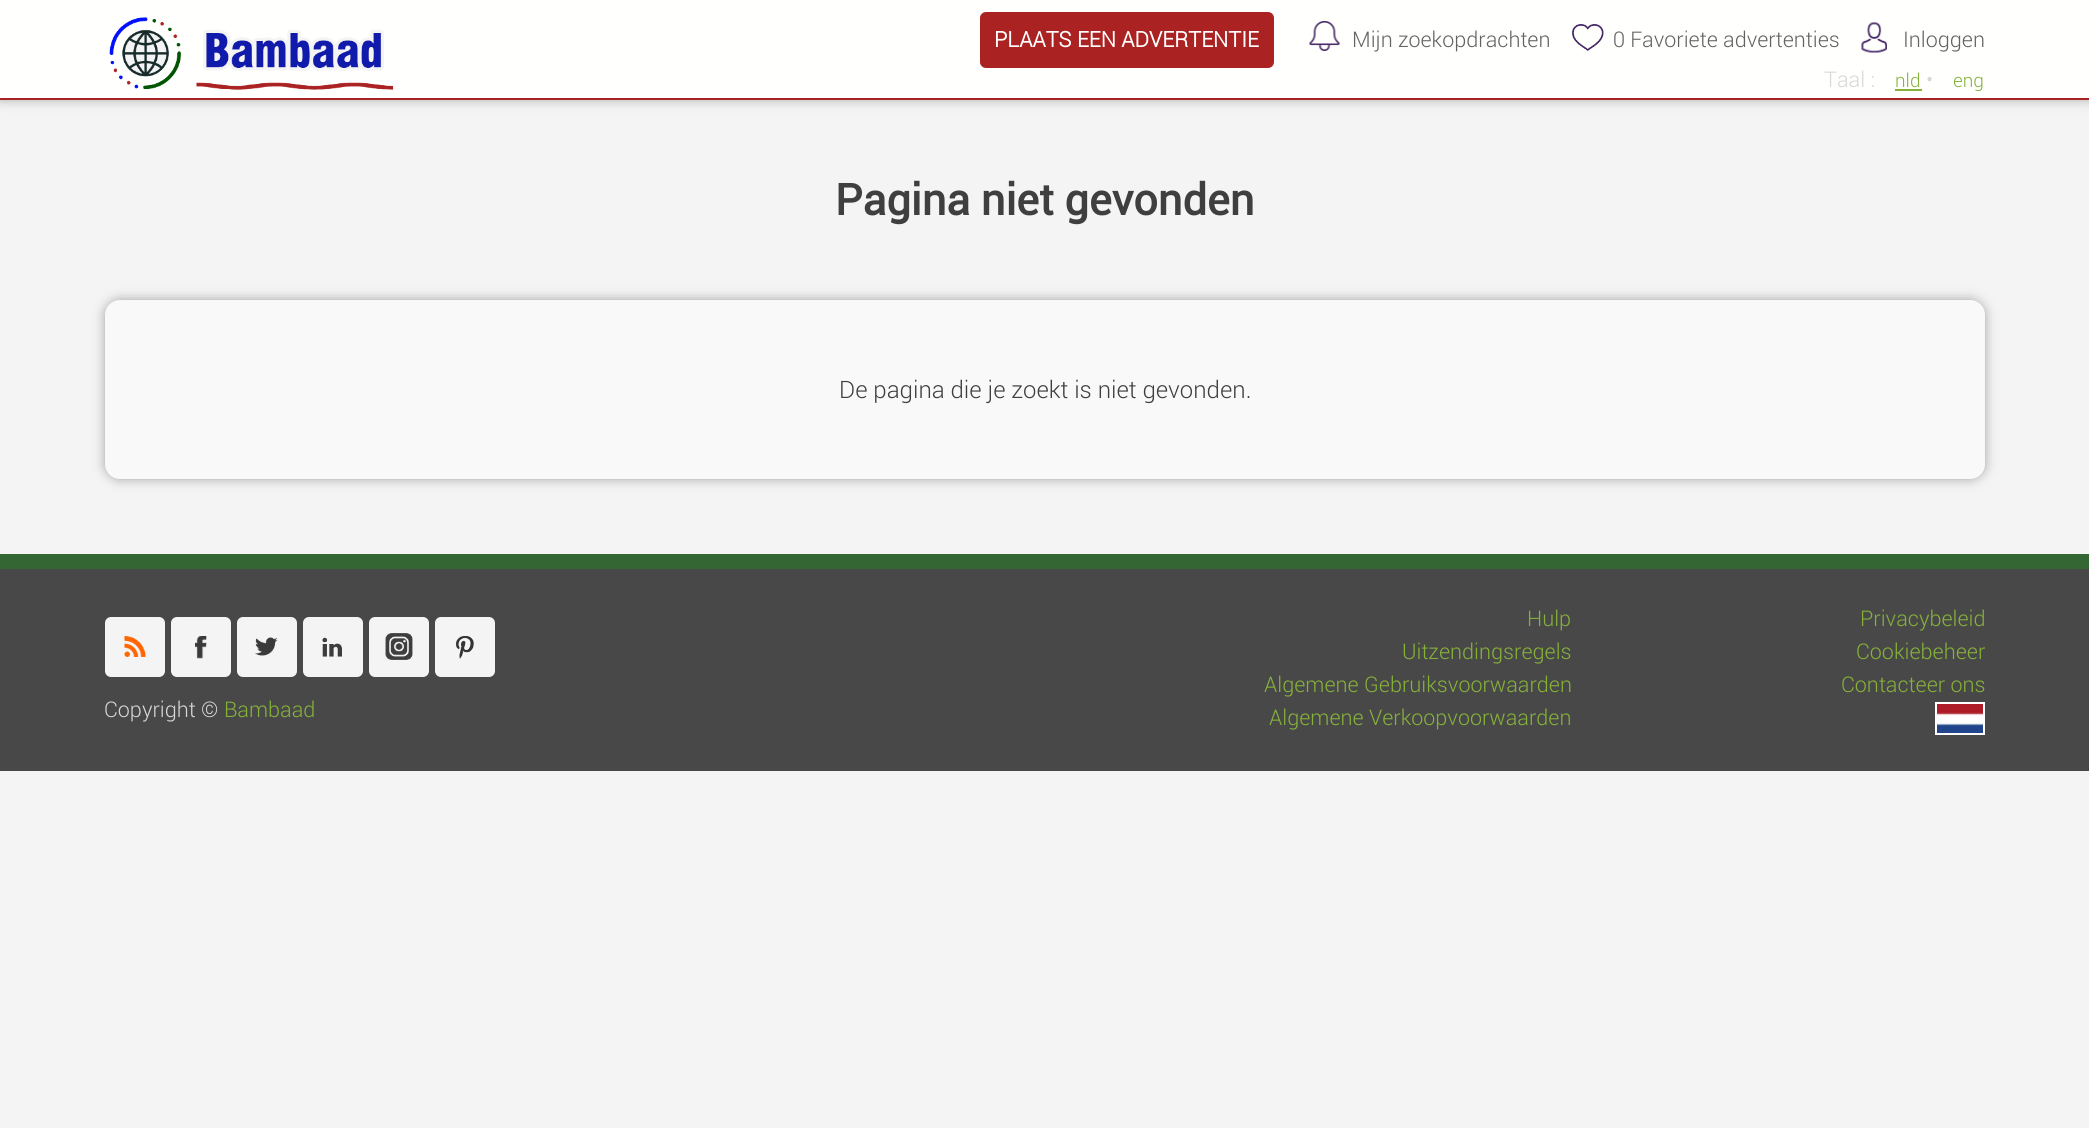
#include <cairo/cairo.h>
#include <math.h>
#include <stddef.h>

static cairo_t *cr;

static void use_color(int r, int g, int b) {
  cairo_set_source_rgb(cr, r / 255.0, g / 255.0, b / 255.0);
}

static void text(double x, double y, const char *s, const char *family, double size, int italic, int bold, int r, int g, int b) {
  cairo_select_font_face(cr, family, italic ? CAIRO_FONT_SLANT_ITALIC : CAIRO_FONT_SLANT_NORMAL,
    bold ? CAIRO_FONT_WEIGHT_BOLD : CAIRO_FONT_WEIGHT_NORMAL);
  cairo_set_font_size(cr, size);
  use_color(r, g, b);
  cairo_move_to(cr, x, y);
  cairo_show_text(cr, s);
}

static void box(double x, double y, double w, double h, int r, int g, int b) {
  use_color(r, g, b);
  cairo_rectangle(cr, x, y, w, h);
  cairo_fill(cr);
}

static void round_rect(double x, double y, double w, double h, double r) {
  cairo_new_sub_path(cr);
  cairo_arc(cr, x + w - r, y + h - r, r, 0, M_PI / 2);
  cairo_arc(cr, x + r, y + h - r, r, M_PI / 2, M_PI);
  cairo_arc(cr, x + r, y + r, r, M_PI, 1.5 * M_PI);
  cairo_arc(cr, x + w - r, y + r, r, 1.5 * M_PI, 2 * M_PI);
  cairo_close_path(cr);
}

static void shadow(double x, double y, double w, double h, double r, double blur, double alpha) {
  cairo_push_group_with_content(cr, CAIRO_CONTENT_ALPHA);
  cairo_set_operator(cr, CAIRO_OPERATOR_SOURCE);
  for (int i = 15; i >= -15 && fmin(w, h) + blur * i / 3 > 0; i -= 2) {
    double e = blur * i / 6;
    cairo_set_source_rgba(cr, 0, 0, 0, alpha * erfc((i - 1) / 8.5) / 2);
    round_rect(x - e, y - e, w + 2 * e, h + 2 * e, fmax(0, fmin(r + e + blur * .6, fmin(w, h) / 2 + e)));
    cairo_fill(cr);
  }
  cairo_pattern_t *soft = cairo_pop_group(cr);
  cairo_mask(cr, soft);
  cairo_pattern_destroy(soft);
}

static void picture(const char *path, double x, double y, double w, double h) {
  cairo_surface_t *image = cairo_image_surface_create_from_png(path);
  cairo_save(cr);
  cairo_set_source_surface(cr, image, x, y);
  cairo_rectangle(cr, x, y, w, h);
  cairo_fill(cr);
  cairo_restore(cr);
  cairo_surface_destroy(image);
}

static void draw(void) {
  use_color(244, 244, 244);
  cairo_paint(cr);
  use_color(162, 162, 162);
  shadow(0, 0, 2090, 99, 0, 6, 1);
  box(0, 0, 2089, 98, 255, 255, 254);
  box(0, 98, 2089, 2, 170, 34, 34);
  picture("img_01.png", 109, 17, 285, 73);
  round_rect(980, 12, 294, 56, 6);
  cairo_fill(cr);
  picture("img_02.png", 1309, 21, 31, 30);
  picture("img_03.png", 1572, 24, 32, 27);
  picture("img_04.png", 1861, 22, 26, 31);
  box(1895, 89, 27, 2, 134, 178, 57);
  use_color(162, 162, 162);
  shadow(105, 300, 1880, 179, 15, 6, 1);
  use_color(249, 249, 249);
  round_rect(105, 300, 1880, 179, 15);
  cairo_fill(cr);
  box(0, 569, 2089, 202, 72, 72, 72);
  box(0, 554, 2089, 15, 51, 102, 51);
  use_color(244, 244, 244);
  round_rect(105, 617, 60, 60, 6);
  cairo_fill(cr);
  picture("img_05.png", 124, 636, 22, 21);
  round_rect(171, 617, 60, 60, 6);
  cairo_fill(cr);
  picture("img_06.png", 195, 636, 12, 23);
  round_rect(237, 617, 60, 60, 6);
  cairo_fill(cr);
  picture("img_07.png", 255, 637, 23, 19);
  round_rect(303, 617, 60, 60, 6);
  cairo_fill(cr);
  picture("img_08.png", 322, 637, 20, 20);
  round_rect(369, 617, 60, 60, 6);
  cairo_fill(cr);
  picture("img_09.png", 385, 633, 28, 27);
  round_rect(435, 617, 60, 60, 6);
  cairo_fill(cr);
  picture("img_10.png", 456, 636, 18, 23);
  picture("img_11.png", 1937, 704, 46, 29);
  cairo_rectangle(cr, 1936, 703, 48, 31);
  use_color(255, 255, 255);
  cairo_stroke(cr);
  text(994, 47, "PLAATS EEN ADVERTENTIE", "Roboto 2", 21.6, 0, 1, 255, 255, 255);
  text(1352, 47, "Mijn zoekopdrachten", "Roboto Light", 21.6, 0, 0, 98, 98, 98);
  text(1613, 47, "0 Favoriete advertenties", "Roboto Light", 21.6, 0, 0, 98, 98, 98);
  text(1903, 47, "Inloggen", "Roboto Light", 21.6, 0, 0, 98, 98, 98);
  text(1824, 87, "Taal :", "Roboto Light", 21.6, 0, 0, 215, 215, 215);
  text(1895, 87, "nld", "Roboto Light", 19, 0, 0, 134, 178, 57);
  text(1926, 87, "•", "Roboto Light", 21.6, 0, 0, 215, 215, 215);
  text(1953, 87, "eng", "Roboto Light", 19, 0, 0, 134, 178, 57);
  text(835, 215, "Pagina niet gevonden", "Roboto", 43.25, 0, 1, 63, 63, 63);
  text(839, 398, "De pagina die je zoekt is niet gevonden.", "Roboto Light", 24, 0, 0, 63, 63, 63);
  text(104, 717, "Copyright ©", "Roboto Light", 21.6, 0, 0, 215, 215, 215);
  text(224, 717, "Bambaad", "Roboto Light", 21.6, 0, 0, 134, 178, 57);
  text(1527, 626, "Hulp", "Roboto Light", 21.6, 0, 0, 134, 178, 57);
  text(1860, 626, "Privacybeleid", "Roboto Light", 21.6, 0, 0, 134, 178, 57);
  text(1402, 659, "Uitzendingsregels", "Roboto Light", 21.6, 0, 0, 134, 178, 57);
  text(1856, 659, "Cookiebeheer", "Roboto Light", 21.6, 0, 0, 134, 178, 57);
  text(1264, 692, "Algemene Gebruiksvoorwaarden", "Roboto Light", 21.6, 0, 0, 134, 178, 57);
  text(1841, 692, "Contacteer ons", "Roboto Light", 21.6, 0, 0, 134, 178, 57);
  text(1269, 725, "Algemene Verkoopvoorwaarden", "Roboto Light", 21.6, 0, 0, 134, 178, 57);
}

int main(void) {
  cairo_surface_t *surface = cairo_image_surface_create(CAIRO_FORMAT_RGB24, 2089, 1128);
  cr = cairo_create(surface);
  cairo_font_options_t *options = cairo_font_options_create();
  cairo_font_options_set_hint_metrics(options, CAIRO_HINT_METRICS_OFF);
  cairo_font_options_set_hint_style(options, CAIRO_HINT_STYLE_NONE);
  cairo_set_font_options(cr, options);
  cairo_set_miter_limit(cr, 4);
  draw();
  cairo_surface_write_to_png(surface, "out.png");
  cairo_font_options_destroy(options);
  cairo_destroy(cr);
  cairo_surface_destroy(surface);
  return 0;
}
